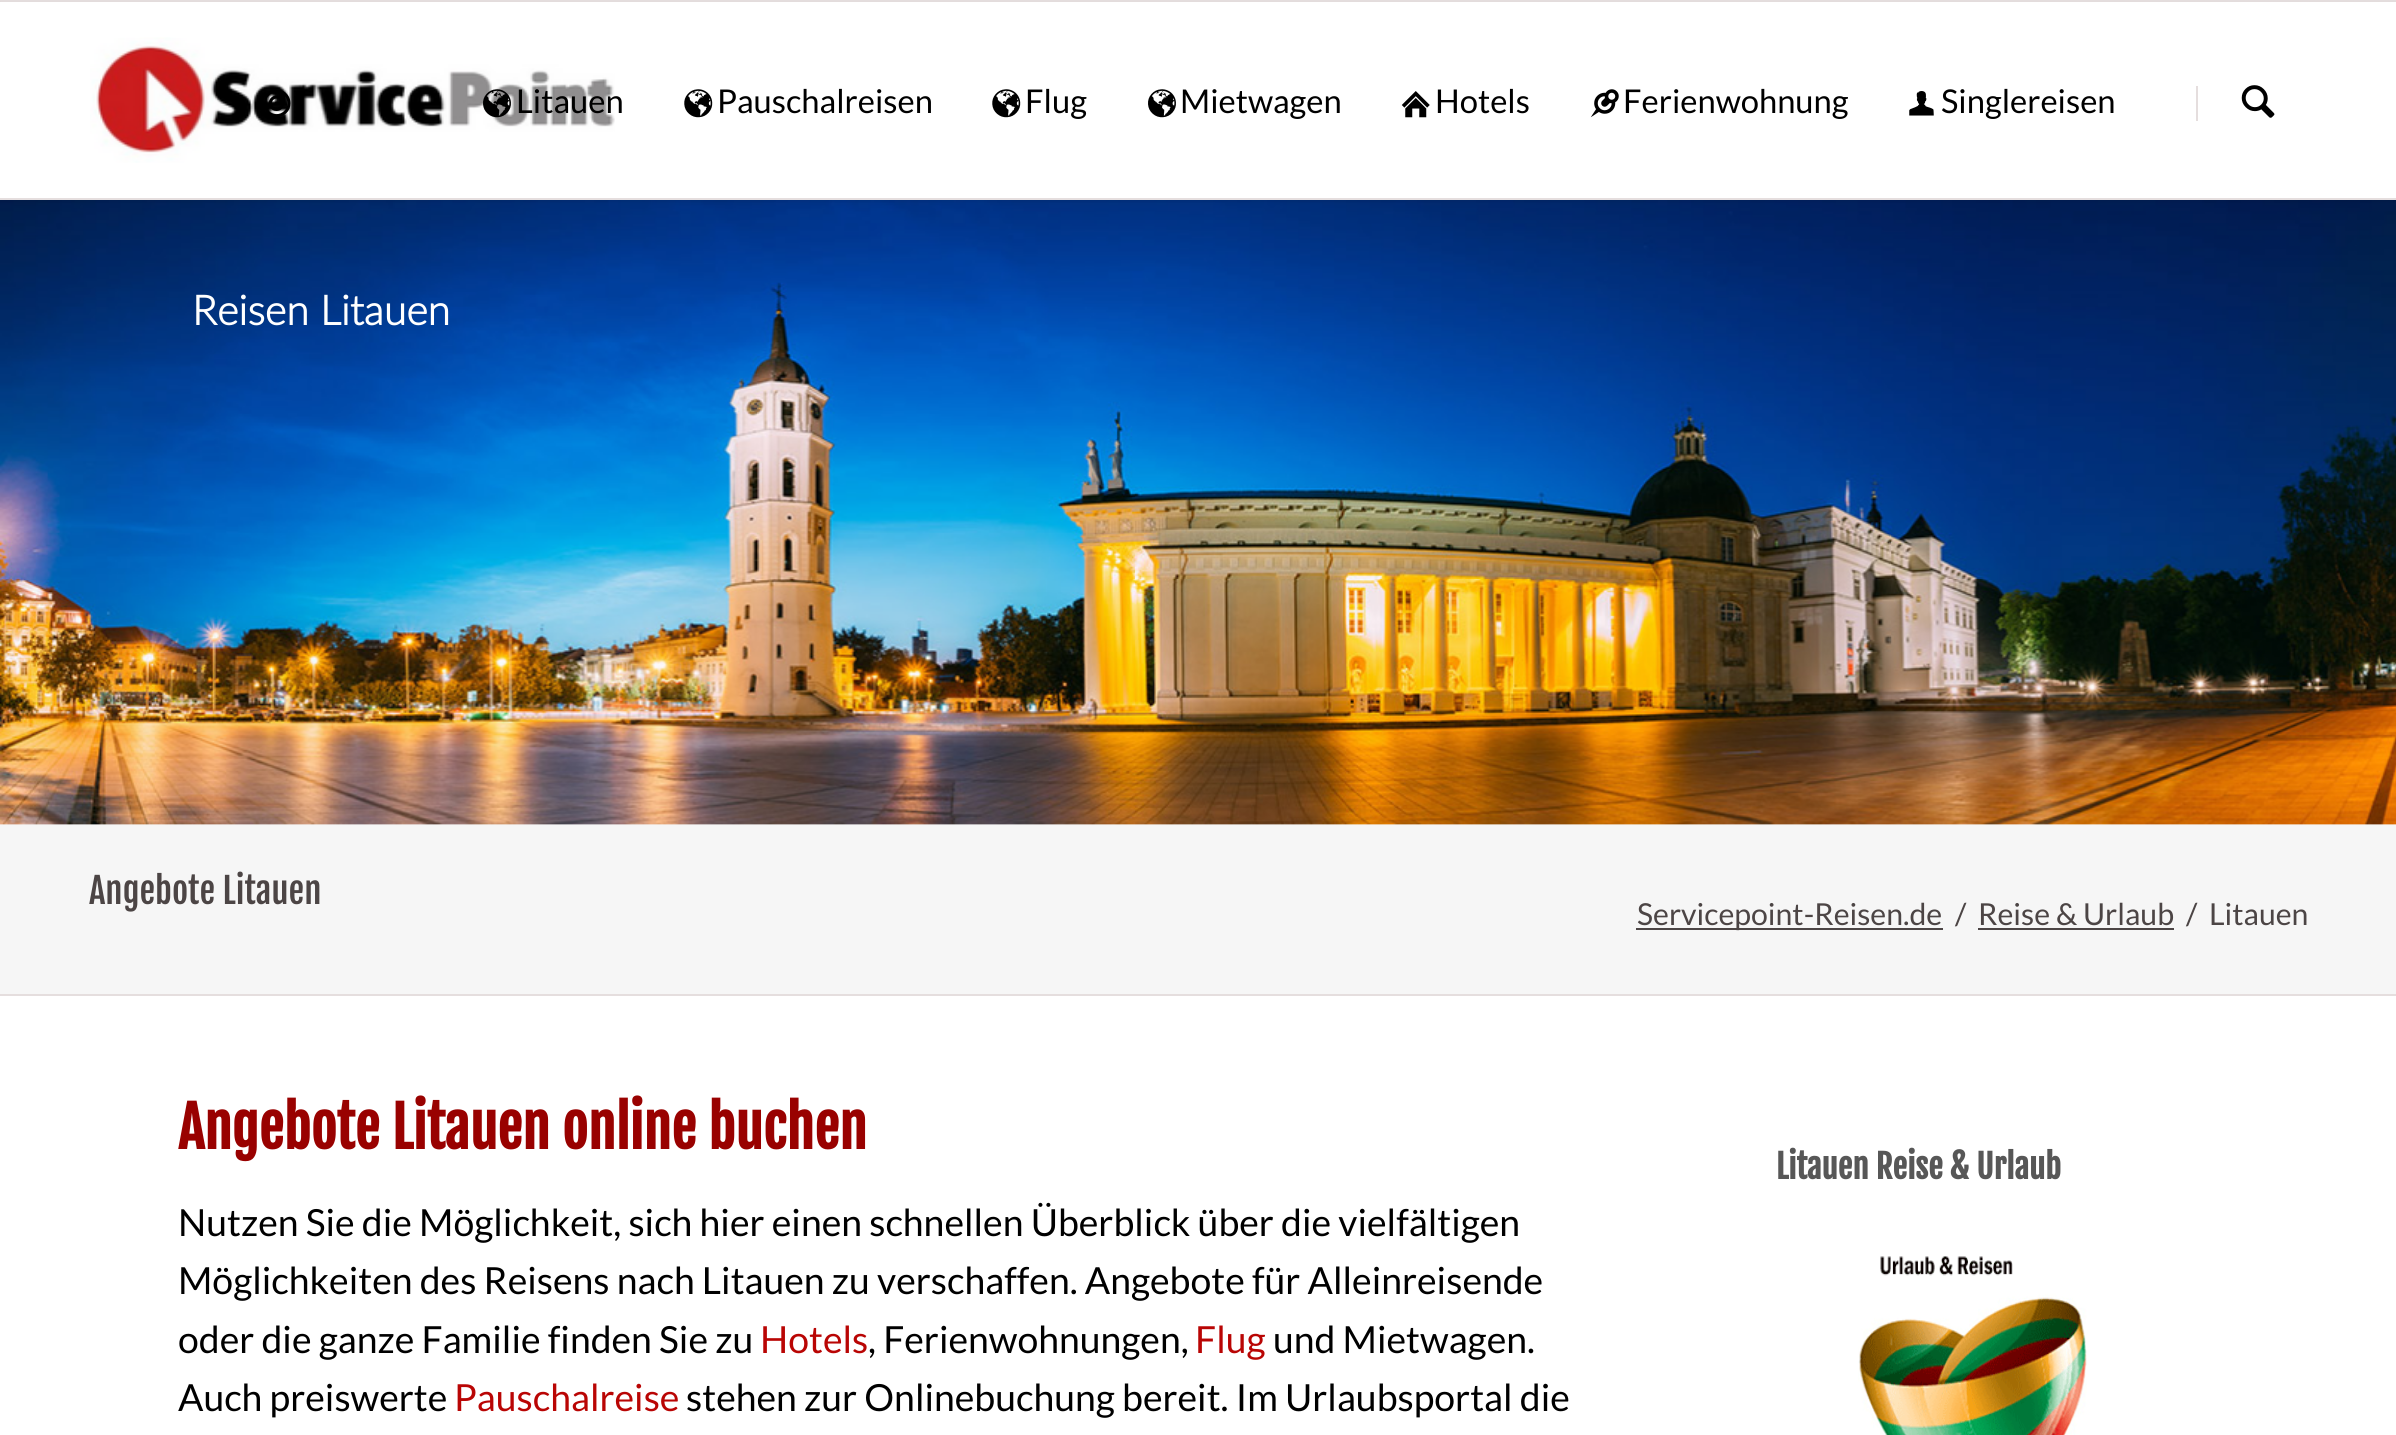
#include <cairo/cairo.h>
#include <math.h>
#include <stddef.h>

static cairo_t *cr;

static void use_color(int r, int g, int b) {
  cairo_set_source_rgb(cr, r / 255.0, g / 255.0, b / 255.0);
}

static void text(double x, double y, const char *s, const char *family, double size, int italic, int bold, int r, int g, int b) {
  cairo_select_font_face(cr, family, italic ? CAIRO_FONT_SLANT_ITALIC : CAIRO_FONT_SLANT_NORMAL,
    bold ? CAIRO_FONT_WEIGHT_BOLD : CAIRO_FONT_WEIGHT_NORMAL);
  cairo_set_font_size(cr, size);
  use_color(r, g, b);
  cairo_move_to(cr, x, y);
  cairo_show_text(cr, s);
}

static void box(double x, double y, double w, double h, int r, int g, int b) {
  use_color(r, g, b);
  cairo_rectangle(cr, x, y, w, h);
  cairo_fill(cr);
}

static void round_rect(double x, double y, double w, double h, double r) {
  cairo_new_sub_path(cr);
  cairo_arc(cr, x + w - r, y + h - r, r, 0, M_PI / 2);
  cairo_arc(cr, x + r, y + h - r, r, M_PI / 2, M_PI);
  cairo_arc(cr, x + r, y + r, r, M_PI, 1.5 * M_PI);
  cairo_arc(cr, x + w - r, y + r, r, 1.5 * M_PI, 2 * M_PI);
  cairo_close_path(cr);
}

static void shadow(double x, double y, double w, double h, double r, double blur, double alpha) {
  cairo_push_group_with_content(cr, CAIRO_CONTENT_ALPHA);
  cairo_set_operator(cr, CAIRO_OPERATOR_SOURCE);
  for (int i = 15; i >= -15 && fmin(w, h) + blur * i / 3 > 0; i -= 2) {
    double e = blur * i / 6;
    cairo_set_source_rgba(cr, 0, 0, 0, alpha * erfc((i - 1) / 8.5) / 2);
    round_rect(x - e, y - e, w + 2 * e, h + 2 * e, fmax(0, fmin(r + e + blur * .6, fmin(w, h) / 2 + e)));
    cairo_fill(cr);
  }
  cairo_pattern_t *soft = cairo_pop_group(cr);
  cairo_mask(cr, soft);
  cairo_pattern_destroy(soft);
}

static void picture(const char *path, double x, double y, double w, double h) {
  cairo_surface_t *image = cairo_image_surface_create_from_png(path);
  cairo_save(cr);
  cairo_set_source_surface(cr, image, x, y);
  cairo_rectangle(cr, x, y, w, h);
  cairo_fill(cr);
  cairo_restore(cr);
  cairo_surface_destroy(image);
}

static void draw(void) {
  use_color(255, 255, 255);
  cairo_paint(cr);
  box(0, 0, 2396, 2, 229, 222, 222);
  box(0, 824, 2396, 170, 246, 246, 246);
  picture("img_10.png", 0, 200, 2396, 625);
  use_color(0, 0, 0);
  shadow(0, 4, 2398, 197, 0, 2, 0.1);
  box(0, 2, 2396, 196, 255, 255, 255);
  box(0, 198, 2396, 2, 229, 222, 222);
  picture("img_01.png", 90, 37, 525, 126);
  picture("img_02.png", 266, 90, 25, 27);
  picture("img_03.png", 483, 89, 28, 29);
  picture("img_04.png", 684, 89, 29, 29);
  picture("img_04.png", 992, 89, 29, 29);
  picture("img_05.png", 1148, 89, 28, 29);
  picture("img_06.png", 1401, 91, 29, 27);
  picture("img_07.png", 1590, 89, 29, 29);
  picture("img_08.png", 1909, 91, 25, 25);
  box(2196, 86, 2, 35, 229, 222, 222);
  picture("img_09.png", 2241, 85, 34, 33);
  box(0, 994, 2396, 2, 229, 222, 222);
  box(1636, 928, 307, 2, 76, 69, 69);
  box(1978, 928, 196, 2, 76, 69, 69);
  picture("img_11.png", 1858, 1256, 229, 179);
  text(516, 113, "Litauen", "Lato", 32.75, 0, 0, 0, 0, 0);
  text(717, 113, "Pauschalreisen", "Lato", 32.75, 0, 0, 0, 0, 0);
  text(1025, 113, "Flug", "Lato", 32.75, 0, 0, 0, 0, 0);
  text(1180, 113, "Mietwagen", "Lato", 32.75, 0, 0, 0, 0, 0);
  text(1435, 113, "Hotels", "Lato", 32.75, 0, 0, 0, 0, 0);
  text(1623, 113, "Ferienwohnung", "Lato", 32.75, 0, 0, 0, 0, 0);
  text(1941, 113, "Singlereisen", "Lato", 32.75, 0, 0, 0, 0, 0);
  text(192, 325, "Reisen Litauen", "Lato", 41, 0, 1, 255, 255, 255);
  text(89, 904, "Angebote Litauen", "Fjalla One", 35, 0, 0, 76, 69, 69);
  text(1637, 925, "Servicepoint-Reisen.de", "Lato", 30.25, 0, 0, 76, 69, 69);
  text(1955, 925, "/", "Lato", 30.25, 0, 0, 76, 69, 69);
  text(1978, 925, "Reise & Urlaub", "Lato", 30.25, 0, 0, 76, 69, 69);
  text(2186, 925, "/", "Lato", 30.25, 0, 0, 76, 69, 69);
  text(2209, 925, "Litauen", "Lato", 30.25, 0, 0, 76, 69, 69);
  text(178, 1149, "Angebote Litauen online buchen", "Fjalla One", 56, 0, 1, 153, 1, 0);
  text(178, 1236, "Nutzen Sie die Möglichkeit, sich hier einen schnellen Überblick über die vielfältigen", "Lato", 37.35, 0, 0, 0, 0, 0);
  text(178, 1294, "Möglichkeiten des Reisens nach Litauen zu verschaffen. Angebote für Alleinreisende", "Lato", 37.35, 0, 0, 0, 0, 0);
  text(178, 1353, "oder die ganze Familie finden Sie zu", "Lato", 37.35, 0, 0, 0, 0, 0);
  text(760, 1353, "Hotels", "Lato", 37.35, 0, 0, 185, 5, 4);
  text(868, 1353, ", Ferienwohnungen,", "Lato", 37.35, 0, 0, 0, 0, 0);
  text(1195, 1353, "Flug", "Lato", 37.35, 0, 0, 185, 5, 4);
  text(1273, 1353, "und Mietwagen.", "Lato", 37.35, 0, 0, 0, 0, 0);
  text(178, 1411, "Auch preiswerte", "Lato", 37.35, 0, 0, 0, 0, 0);
  text(454, 1411, "Pauschalreise", "Lato", 37.35, 0, 0, 185, 5, 4);
  text(686, 1411, "stehen zur Onlinebuchung bereit. Im Urlaubsportal die", "Lato", 37.35, 0, 0, 0, 0, 0);
  text(1776, 1179, "Litauen Reise & Urlaub", "Fjalla One", 32.75, 0, 1, 87, 87, 87);
}

int main(void) {
  cairo_surface_t *surface = cairo_image_surface_create(CAIRO_FORMAT_RGB24, 2396, 1435);
  cr = cairo_create(surface);
  cairo_font_options_t *options = cairo_font_options_create();
  cairo_font_options_set_hint_metrics(options, CAIRO_HINT_METRICS_OFF);
  cairo_font_options_set_hint_style(options, CAIRO_HINT_STYLE_NONE);
  cairo_set_font_options(cr, options);
  cairo_set_miter_limit(cr, 4);
  draw();
  cairo_surface_write_to_png(surface, "out.png");
  cairo_font_options_destroy(options);
  cairo_destroy(cr);
  cairo_surface_destroy(surface);
  return 0;
}
